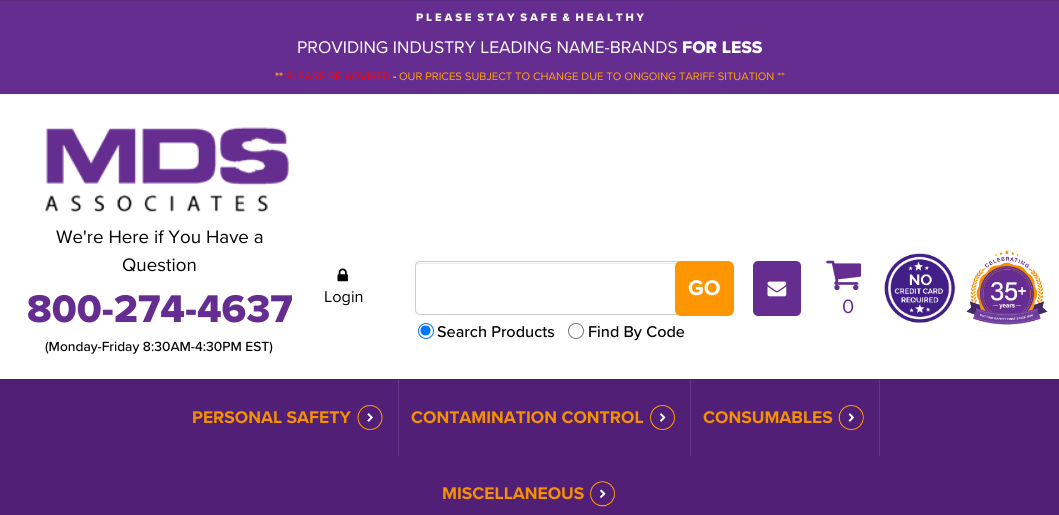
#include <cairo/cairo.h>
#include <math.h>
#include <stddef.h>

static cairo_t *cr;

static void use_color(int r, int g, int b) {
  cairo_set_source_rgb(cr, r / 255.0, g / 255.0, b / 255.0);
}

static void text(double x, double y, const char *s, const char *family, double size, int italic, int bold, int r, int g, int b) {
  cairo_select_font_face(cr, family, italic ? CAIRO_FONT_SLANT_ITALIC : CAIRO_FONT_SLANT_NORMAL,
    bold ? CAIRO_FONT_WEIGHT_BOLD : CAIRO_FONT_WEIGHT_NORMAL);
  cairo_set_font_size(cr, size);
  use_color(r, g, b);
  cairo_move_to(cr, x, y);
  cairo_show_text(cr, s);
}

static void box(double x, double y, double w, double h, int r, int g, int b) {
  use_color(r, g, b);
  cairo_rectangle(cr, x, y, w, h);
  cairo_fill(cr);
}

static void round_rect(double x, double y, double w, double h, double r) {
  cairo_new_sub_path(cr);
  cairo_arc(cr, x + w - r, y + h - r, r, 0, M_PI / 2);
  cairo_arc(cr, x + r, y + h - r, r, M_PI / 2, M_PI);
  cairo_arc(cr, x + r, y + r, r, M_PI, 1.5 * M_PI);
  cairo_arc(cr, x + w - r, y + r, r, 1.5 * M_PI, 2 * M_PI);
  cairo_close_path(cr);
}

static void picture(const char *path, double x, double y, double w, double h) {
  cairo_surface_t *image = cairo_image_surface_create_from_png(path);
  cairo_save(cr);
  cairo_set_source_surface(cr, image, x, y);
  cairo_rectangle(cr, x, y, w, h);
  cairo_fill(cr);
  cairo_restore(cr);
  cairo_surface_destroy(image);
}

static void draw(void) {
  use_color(102, 45, 145);
  cairo_paint(cr);
  box(0, 0, 1059, 1, 92, 41, 131);
  box(0, 94, 1059, 285, 255, 255, 255);
  picture("img_01.png", 45, 127, 244, 85);
  picture("img_02.png", 337, 268, 11, 14);
  use_color(236, 236, 236);
  cairo_new_path(cr);
  cairo_move_to(cr, 420, 264);
  cairo_line_to(cr, 710, 264);
  cairo_curve_to(cr, 712, 264, 714, 265, 714, 268);
  cairo_curve_to(cr, 714, 265, 713, 263, 710, 263);
  cairo_line_to(cr, 420, 263);
  cairo_curve_to(cr, 417, 263, 416, 265, 416, 268);
  cairo_curve_to(cr, 416, 265, 418, 264, 420, 264);
  cairo_close_path(cr);
  cairo_fill(cr);
  round_rect(415.5, 261.5, 299, 53, 4.5);
  use_color(204, 204, 204);
  cairo_set_line_width(cr, 1);
  cairo_stroke(cr);
  use_color(254, 150, 1);
  round_rect(675, 261, 59, 55, 6);
  cairo_fill(cr);
  cairo_arc(cr, 426, 331, 7.5, 0, 2 * M_PI);
  use_color(0, 117, 255);
  cairo_stroke(cr);
  cairo_arc(cr, 425.5, 330.5, 5, 0, 2 * M_PI);
  cairo_fill(cr);
  cairo_arc(cr, 576, 331, 7.5, 0, 2 * M_PI);
  use_color(118, 118, 118);
  cairo_stroke(cr);
  use_color(102, 45, 145);
  round_rect(753, 261, 48, 55, 5);
  cairo_fill(cr);
  picture("img_03.png", 767, 281, 20, 16);
  picture("img_04.png", 826, 260, 36, 31);
  picture("img_05.png", 884, 253, 71, 70);
  picture("img_06.png", 966, 250, 82, 75);
  box(0, 380, 1059, 135, 82, 31, 118);
  box(0, 379, 1059, 1, 74, 28, 106);
  box(398, 380, 1, 76, 99, 53, 132);
  picture("img_07.png", 357, 405, 26, 25);
  box(690, 380, 1, 76, 99, 53, 132);
  picture("img_08.png", 650, 405, 25, 25);
  box(879, 380, 1, 76, 99, 53, 132);
  picture("img_09.png", 838, 405, 26, 25);
  picture("img_10.png", 590, 481, 25, 26);
  text(416, 21, "P L E A S E  S T A Y  S A F E  &  H E A L T H Y", "Proxima Nova ExtraBold", 11.25, 0, 0, 255, 255, 255);
  text(297, 53, "PROVIDING INDUSTRY LEADING NAME-BRANDS", "Proxima Nova", 17.5, 0, 0, 255, 255, 255);
  text(682, 53, "FOR LESS", "Proxima Nova ExtraBold", 17.5, 0, 0, 255, 255, 255);
  text(275, 80, "**", "Proxima Nova ExtraBold", 11.25, 0, 0, 255, 165, 0);
  text(286, 80, "PLEASE BE ADVISED", "Proxima Nova", 11.25, 0, 0, 255, 0, 0);
  text(393, 80, "-", "Proxima Nova ExtraBold", 11.25, 0, 0, 255, 165, 0);
  text(399, 80, "OUR PRICES SUBJECT TO CHANGE DUE TO ONGOING TARIFF SITUATION **", "Proxima Nova", 11.25, 0, 0, 255, 165, 0);
  text(56, 243, "We're Here if You Have a", "Proxima Nova", 18.75, 0, 0, 0, 0, 0);
  text(122, 271, "Question", "Proxima Nova", 18.75, 0, 0, 0, 0, 0);
  text(27, 322, "800-274-4637", "Proxima Nova ExtraBold", 40, 0, 0, 102, 45, 145);
  text(45, 351, "(Monday-Friday 8:30AM-4:30PM EST)", "Proxima Nova Medium", 13.75, 0, 0, 0, 0, 0);
  text(324, 302, "Login", "Proxima Nova", 16.25, 0, 0, 0, 0, 0);
  text(688, 295, "GO", "Proxima Nova", 22, 0, 1, 255, 255, 255);
  text(437, 337, "Search Products", "Proxima Nova Medium", 16.25, 0, 0, 0, 0, 0);
  text(588, 337, "Find By Code", "Proxima Nova Medium", 16.25, 0, 0, 0, 0, 0);
  text(842, 313, "0", "Proxima Nova", 20, 0, 0, 102, 45, 145);
  text(192, 423, "PERSONAL SAFETY", "Proxima Nova", 17.5, 0, 1, 244, 144, 1);
  text(411, 423, "CONTAMINATION CONTROL", "Proxima Nova", 17.5, 0, 1, 244, 144, 1);
  text(703, 423, "CONSUMABLES", "Proxima Nova", 17.5, 0, 1, 244, 144, 1);
  text(442, 499, "MISCELLANEOUS", "Proxima Nova", 17.5, 0, 1, 244, 144, 1);
}

int main(void) {
  cairo_surface_t *surface = cairo_image_surface_create(CAIRO_FORMAT_RGB24, 1059, 515);
  cr = cairo_create(surface);
  cairo_font_options_t *options = cairo_font_options_create();
  cairo_font_options_set_hint_metrics(options, CAIRO_HINT_METRICS_OFF);
  cairo_font_options_set_hint_style(options, CAIRO_HINT_STYLE_NONE);
  cairo_set_font_options(cr, options);
  cairo_set_miter_limit(cr, 4);
  draw();
  cairo_surface_write_to_png(surface, "out.png");
  cairo_font_options_destroy(options);
  cairo_destroy(cr);
  cairo_surface_destroy(surface);
  return 0;
}
